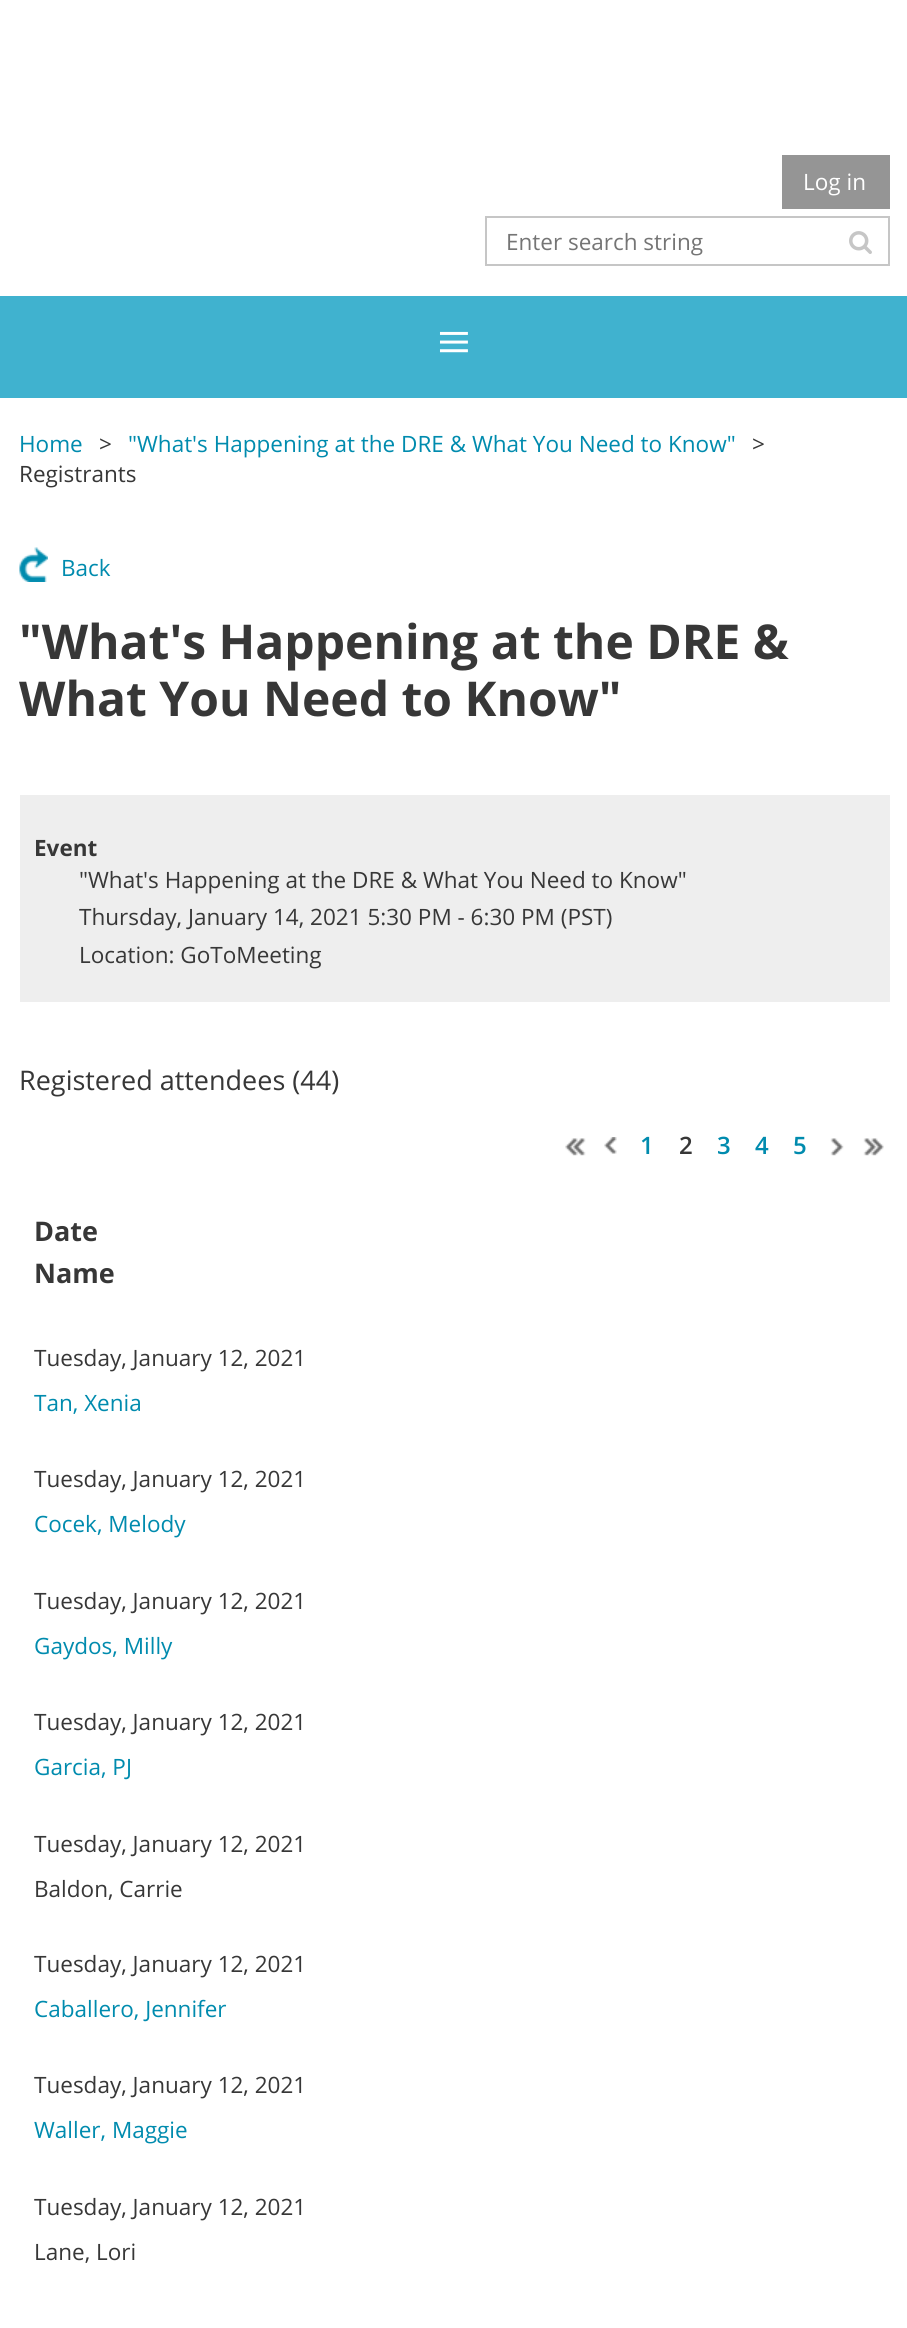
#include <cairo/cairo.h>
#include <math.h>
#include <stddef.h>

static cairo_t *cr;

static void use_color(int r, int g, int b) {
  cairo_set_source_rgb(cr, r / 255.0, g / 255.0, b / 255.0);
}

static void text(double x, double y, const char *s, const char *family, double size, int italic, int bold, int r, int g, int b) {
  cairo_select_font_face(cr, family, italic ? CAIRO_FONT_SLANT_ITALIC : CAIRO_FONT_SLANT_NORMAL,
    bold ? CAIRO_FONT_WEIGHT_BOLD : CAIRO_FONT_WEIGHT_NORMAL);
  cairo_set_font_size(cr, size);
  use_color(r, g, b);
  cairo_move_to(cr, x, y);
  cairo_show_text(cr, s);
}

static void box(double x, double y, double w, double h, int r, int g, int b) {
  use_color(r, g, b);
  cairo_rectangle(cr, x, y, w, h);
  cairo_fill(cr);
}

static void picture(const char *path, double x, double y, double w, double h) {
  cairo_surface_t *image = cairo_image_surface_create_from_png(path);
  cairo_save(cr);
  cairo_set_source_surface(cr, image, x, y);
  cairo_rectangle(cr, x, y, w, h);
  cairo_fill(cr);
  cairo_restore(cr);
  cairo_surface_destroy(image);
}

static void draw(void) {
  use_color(255, 255, 255);
  cairo_paint(cr);
  box(782, 155, 108, 54, 149, 149, 149);
  cairo_rectangle(cr, 486, 217, 403, 48);
  use_color(198, 198, 198);
  cairo_stroke(cr);
  picture("img_01.png", 849, 231, 23, 23);
  box(0, 296, 907, 102, 64, 178, 207);
  picture("img_02.png", 19, 547, 29, 35);
  box(20, 795, 870, 207, 238, 238, 238);
  picture("img_03.png", 565, 1138, 21, 18);
  picture("img_04.png", 604, 1137, 13, 17);
  picture("img_05.png", 830, 1138, 14, 18);
  picture("img_06.png", 863, 1138, 21, 18);
  text(803, 190, "Log in", "Open Sans", 22.5, 0, 0, 255, 255, 255);
  text(506, 250, "Enter search string", "Open Sans", 22.5, 0, 0, 117, 117, 117);
  text(437, 362, "≡", "Liberation Serif", 60, 0, 0, 255, 255, 255);
  text(19, 452, "Home", "Open Sans", 22.5, 0, 0, 0, 139, 174);
  text(99, 452, ">", "Open Sans", 22.5, 0, 0, 55, 55, 55);
  text(128, 452, "\"What's Happening at the DRE & What You Need to Know\"", "Open Sans", 22.5, 0, 0, 0, 139, 174);
  text(752, 452, ">", "Open Sans", 22.5, 0, 0, 55, 55, 55);
  text(19, 482, "Registrants", "Open Sans", 22.5, 0, 0, 55, 55, 55);
  text(61, 576, "Back", "Open Sans", 22.5, 0, 0, 0, 139, 174);
  text(19, 659, "\"What's Happening at the DRE &", "Open Sans", 48, 0, 1, 55, 55, 55);
  text(19, 716, "What You Need to Know\"", "Open Sans", 48, 0, 1, 55, 55, 55);
  text(34, 856, "Event", "Open Sans", 22.5, 0, 1, 55, 55, 55);
  text(79, 888, "\"What's Happening at the DRE & What You Need to Know\"", "Open Sans", 22.5, 0, 0, 55, 55, 55);
  text(79, 925, "Thursday, January 14, 2021 5:30 PM - 6:30 PM (PST)", "Open Sans", 22.5, 0, 0, 55, 55, 55);
  text(79, 963, "Location: GoToMeeting", "Open Sans", 22.5, 0, 0, 55, 55, 55);
  text(19, 1090, "Registered attendees (44)", "Open Sans", 27, 0, 0, 55, 55, 55);
  text(640, 1154, "1", "Open Sans SemiBold", 24, 0, 0, 0, 139, 174);
  text(679, 1154, "2", "Open Sans SemiBold", 24, 0, 0, 55, 55, 55);
  text(717, 1154, "3", "Open Sans SemiBold", 24, 0, 0, 0, 139, 174);
  text(755, 1154, "4", "Open Sans SemiBold", 24, 0, 0, 0, 139, 174);
  text(793, 1154, "5", "Open Sans SemiBold", 24, 0, 0, 0, 139, 174);
  text(34, 1241, "Date", "Open Sans", 27, 0, 1, 55, 55, 55);
  text(34, 1283, "Name", "Open Sans", 27, 0, 1, 55, 55, 55);
  text(34, 1366, "Tuesday, January 12, 2021", "Open Sans", 22.5, 0, 0, 55, 55, 55);
  text(34, 1411, "Tan, Xenia", "Open Sans", 22.5, 0, 0, 0, 139, 174);
  text(34, 1487, "Tuesday, January 12, 2021", "Open Sans", 22.5, 0, 0, 55, 55, 55);
  text(34, 1532, "Cocek, Melody", "Open Sans", 22.5, 0, 0, 0, 139, 174);
  text(34, 1609, "Tuesday, January 12, 2021", "Open Sans", 22.5, 0, 0, 55, 55, 55);
  text(34, 1654, "Gaydos, Milly", "Open Sans", 22.5, 0, 0, 0, 139, 174);
  text(34, 1730, "Tuesday, January 12, 2021", "Open Sans", 22.5, 0, 0, 55, 55, 55);
  text(34, 1775, "Garcia, PJ", "Open Sans", 22.5, 0, 0, 0, 139, 174);
  text(34, 1852, "Tuesday, January 12, 2021", "Open Sans", 22.5, 0, 0, 55, 55, 55);
  text(34, 1897, "Baldon, Carrie", "Open Sans", 22.5, 0, 0, 55, 55, 55);
  text(34, 1972, "Tuesday, January 12, 2021", "Open Sans", 22.5, 0, 0, 55, 55, 55);
  text(34, 2017, "Caballero, Jennifer", "Open Sans", 22.5, 0, 0, 0, 139, 174);
  text(34, 2093, "Tuesday, January 12, 2021", "Open Sans", 22.5, 0, 0, 55, 55, 55);
  text(34, 2138, "Waller, Maggie", "Open Sans", 22.5, 0, 0, 0, 139, 174);
  text(34, 2215, "Tuesday, January 12, 2021", "Open Sans", 22.5, 0, 0, 55, 55, 55);
  text(34, 2260, "Lane, Lori", "Open Sans", 22.5, 0, 0, 55, 55, 55);
}

int main(void) {
  cairo_surface_t *surface = cairo_image_surface_create(CAIRO_FORMAT_RGB24, 907, 2328);
  cr = cairo_create(surface);
  cairo_font_options_t *options = cairo_font_options_create();
  cairo_font_options_set_hint_metrics(options, CAIRO_HINT_METRICS_OFF);
  cairo_font_options_set_hint_style(options, CAIRO_HINT_STYLE_NONE);
  cairo_set_font_options(cr, options);
  cairo_set_miter_limit(cr, 4);
  draw();
  cairo_surface_write_to_png(surface, "out.png");
  cairo_font_options_destroy(options);
  cairo_destroy(cr);
  cairo_surface_destroy(surface);
  return 0;
}
